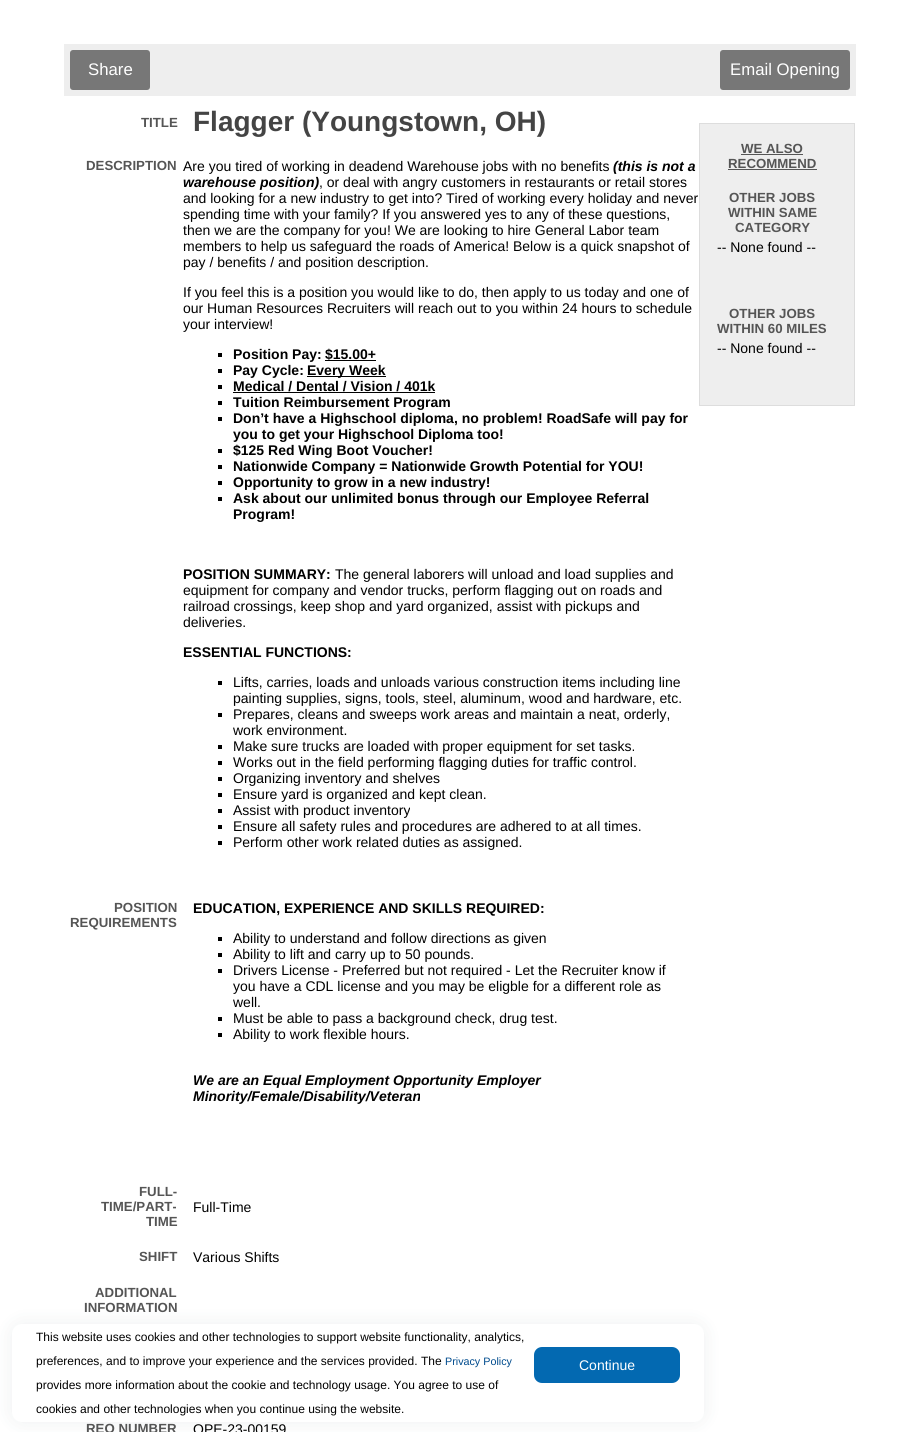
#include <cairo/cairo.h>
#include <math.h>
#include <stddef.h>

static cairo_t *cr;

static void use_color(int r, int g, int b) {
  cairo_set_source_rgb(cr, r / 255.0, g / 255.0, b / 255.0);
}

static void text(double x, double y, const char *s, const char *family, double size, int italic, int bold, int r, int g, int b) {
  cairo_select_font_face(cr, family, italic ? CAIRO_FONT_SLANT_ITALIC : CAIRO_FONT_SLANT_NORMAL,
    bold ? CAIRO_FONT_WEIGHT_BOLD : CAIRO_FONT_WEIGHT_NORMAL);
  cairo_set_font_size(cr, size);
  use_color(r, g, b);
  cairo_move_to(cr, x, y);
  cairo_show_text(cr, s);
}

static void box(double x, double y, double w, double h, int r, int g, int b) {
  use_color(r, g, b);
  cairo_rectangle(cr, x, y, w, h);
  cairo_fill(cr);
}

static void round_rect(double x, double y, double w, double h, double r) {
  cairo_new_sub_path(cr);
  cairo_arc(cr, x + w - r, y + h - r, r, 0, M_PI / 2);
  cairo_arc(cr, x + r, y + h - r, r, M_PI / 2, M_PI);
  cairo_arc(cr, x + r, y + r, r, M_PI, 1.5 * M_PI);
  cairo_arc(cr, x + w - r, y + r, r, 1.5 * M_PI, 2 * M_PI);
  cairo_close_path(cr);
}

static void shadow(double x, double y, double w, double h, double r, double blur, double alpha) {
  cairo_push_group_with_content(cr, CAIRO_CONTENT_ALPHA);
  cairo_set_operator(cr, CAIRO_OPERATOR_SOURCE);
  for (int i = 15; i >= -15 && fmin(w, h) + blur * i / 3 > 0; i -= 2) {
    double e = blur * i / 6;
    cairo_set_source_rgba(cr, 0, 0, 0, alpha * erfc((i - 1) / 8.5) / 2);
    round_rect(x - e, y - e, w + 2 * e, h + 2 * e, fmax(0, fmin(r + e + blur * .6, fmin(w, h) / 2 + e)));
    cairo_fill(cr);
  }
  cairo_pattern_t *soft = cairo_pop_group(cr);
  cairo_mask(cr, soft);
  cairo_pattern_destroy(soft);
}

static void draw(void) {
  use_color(255, 255, 255);
  cairo_paint(cr);
  box(64, 44, 792, 52, 238, 238, 238);
  use_color(119, 119, 119);
  round_rect(70, 50, 80, 40, 3);
  cairo_fill(cr);
  round_rect(720, 50, 130, 40, 3);
  cairo_fill(cr);
  box(218, 353, 4, 4, 0, 0, 0);
  box(325, 360, 51, 1, 0, 0, 0);
  box(218, 369, 4, 4, 0, 0, 0);
  box(307, 376, 79, 1, 0, 0, 0);
  box(218, 385, 4, 4, 0, 0, 0);
  box(233, 392, 202, 1, 0, 0, 0);
  box(218, 401, 4, 4, 0, 0, 0);
  box(218, 417, 4, 4, 0, 0, 0);
  box(218, 449, 4, 4, 0, 0, 0);
  box(218, 465, 4, 4, 0, 0, 0);
  box(218, 481, 4, 4, 0, 0, 0);
  box(218, 497, 4, 4, 0, 0, 0);
  box(218, 681, 4, 4, 0, 0, 0);
  box(218, 713, 4, 4, 0, 0, 0);
  box(218, 745, 4, 4, 0, 0, 0);
  box(218, 761, 4, 4, 0, 0, 0);
  box(218, 777, 4, 4, 0, 0, 0);
  box(218, 793, 4, 4, 0, 0, 0);
  box(218, 809, 4, 4, 0, 0, 0);
  box(218, 825, 4, 4, 0, 0, 0);
  box(218, 841, 4, 4, 0, 0, 0);
  box(218, 937, 4, 4, 0, 0, 0);
  box(218, 953, 4, 4, 0, 0, 0);
  box(218, 969, 4, 4, 0, 0, 0);
  box(218, 1017, 4, 4, 0, 0, 0);
  box(218, 1033, 4, 4, 0, 0, 0);
  use_color(238, 238, 238);
  cairo_rectangle(cr, 699.5, 123.5, 155, 282);
  cairo_fill_preserve(cr);
  use_color(221, 221, 221);
  cairo_set_line_width(cr, 1);
  cairo_stroke(cr);
  box(741, 154, 62, 1, 85, 85, 85);
  box(728, 169, 89, 1, 85, 85, 85);
  use_color(39, 59, 74);
  shadow(12, 1324, 692, 98, 10, 10, 0.08);
  use_color(255, 255, 255);
  round_rect(12, 1324, 692, 98, 10);
  cairo_fill(cr);
  use_color(3, 105, 177);
  round_rect(534, 1347, 146, 36, 8);
  cairo_fill(cr);
  text(88, 75, "Share", "Liberation Sans", 16.75, 0, 0, 255, 255, 255);
  text(730, 75, "Email Opening", "Liberation Sans", 16.75, 0, 0, 255, 255, 255);
  text(141, 127, "TITLE", "Liberation Sans", 13.25, 0, 1, 85, 85, 85);
  text(193, 131, "Flagger (Youngstown, OH)", "Liberation Sans", 28, 0, 1, 68, 68, 68);
  text(86, 170, "DESCRIPTION", "Liberation Sans", 13.25, 0, 1, 85, 85, 85);
  text(183, 171, "Are you tired of working in deadend Warehouse jobs with no benefits", "Liberation Sans", 14, 0, 0, 0, 0, 0);
  text(613, 171, "(this is not a", "Liberation Sans", 14, 1, 1, 0, 0, 0);
  text(183, 187, "warehouse position)", "Liberation Sans", 14, 1, 1, 0, 0, 0);
  text(319, 187, ", or deal with angry customers in restaurants or retail stores", "Liberation Sans", 14, 0, 0, 0, 0, 0);
  text(183, 203, "and looking for a new industry to get into? Tired of working every holiday and never", "Liberation Sans", 14, 0, 0, 0, 0, 0);
  text(183, 219, "spending time with your family? If you answered yes to any of these questions,", "Liberation Sans", 14, 0, 0, 0, 0, 0);
  text(183, 235, "then we are the company for you! We are looking to hire General Labor team", "Liberation Sans", 14, 0, 0, 0, 0, 0);
  text(183, 251, "members to help us safeguard the roads of America! Below is a quick snapshot of", "Liberation Sans", 14, 0, 0, 0, 0, 0);
  text(183, 267, "pay / benefits / and position description.", "Liberation Sans", 14, 0, 0, 0, 0, 0);
  text(183, 297, "If you feel this is a position you would like to do, then apply to us today and one of", "Liberation Sans", 14, 0, 0, 0, 0, 0);
  text(183, 313, "our Human Resources Recruiters will reach out to you within 24 hours to schedule", "Liberation Sans", 14, 0, 0, 0, 0, 0);
  text(183, 329, "your interview!", "Liberation Sans", 14, 0, 0, 0, 0, 0);
  text(233, 359, "Position Pay:", "Liberation Sans", 14, 0, 1, 0, 0, 0);
  text(325, 359, "$15.00+", "Liberation Sans", 14, 0, 1, 0, 0, 0);
  text(233, 375, "Pay Cycle:", "Liberation Sans", 14, 0, 1, 0, 0, 0);
  text(307, 375, "Every Week", "Liberation Sans", 14, 0, 1, 0, 0, 0);
  text(233, 391, "Medical / Dental / Vision / 401k", "Liberation Sans", 14, 0, 1, 0, 0, 0);
  text(233, 407, "Tuition Reimbursement Program", "Liberation Sans", 14, 0, 1, 0, 0, 0);
  text(233, 423, "Don’t have a Highschool diploma, no problem! RoadSafe will pay for", "Liberation Sans", 14, 0, 1, 0, 0, 0);
  text(233, 439, "you to get your Highschool Diploma too!", "Liberation Sans", 14, 0, 1, 0, 0, 0);
  text(233, 455, "$125 Red Wing Boot Voucher!", "Liberation Sans", 14, 0, 1, 0, 0, 0);
  text(233, 471, "Nationwide Company = Nationwide Growth Potential for YOU!", "Liberation Sans", 14, 0, 1, 0, 0, 0);
  text(233, 487, "Opportunity to grow in a new industry!", "Liberation Sans", 14, 0, 1, 0, 0, 0);
  text(233, 503, "Ask about our unlimited bonus through our Employee Referral", "Liberation Sans", 14, 0, 1, 0, 0, 0);
  text(233, 519, "Program!", "Liberation Sans", 14, 0, 1, 0, 0, 0);
  text(183, 579, "POSITION SUMMARY:", "Liberation Sans", 14, 0, 1, 0, 0, 0);
  text(335, 579, "The general laborers will unload and load supplies and", "Liberation Sans", 14, 0, 0, 0, 0, 0);
  text(183, 595, "equipment for company and vendor trucks, perform flagging out on roads and", "Liberation Sans", 14, 0, 0, 0, 0, 0);
  text(183, 611, "railroad crossings, keep shop and yard organized, assist with pickups and", "Liberation Sans", 14, 0, 0, 0, 0, 0);
  text(183, 627, "deliveries.", "Liberation Sans", 14, 0, 0, 0, 0, 0);
  text(183, 657, "ESSENTIAL FUNCTIONS:", "Liberation Sans", 14, 0, 1, 0, 0, 0);
  text(233, 687, "Lifts, carries, loads and unloads various construction items including line", "Liberation Sans", 14, 0, 0, 0, 0, 0);
  text(233, 703, "painting supplies, signs, tools, steel, aluminum, wood and hardware, etc.", "Liberation Sans", 14, 0, 0, 0, 0, 0);
  text(233, 719, "Prepares, cleans and sweeps work areas and maintain a neat, orderly,", "Liberation Sans", 14, 0, 0, 0, 0, 0);
  text(233, 735, "work environment.", "Liberation Sans", 14, 0, 0, 0, 0, 0);
  text(233, 751, "Make sure trucks are loaded with proper equipment for set tasks.", "Liberation Sans", 14, 0, 0, 0, 0, 0);
  text(233, 767, "Works out in the field performing flagging duties for traffic control.", "Liberation Sans", 14, 0, 0, 0, 0, 0);
  text(233, 783, "Organizing inventory and shelves", "Liberation Sans", 14, 0, 0, 0, 0, 0);
  text(233, 799, "Ensure yard is organized and kept clean.", "Liberation Sans", 14, 0, 0, 0, 0, 0);
  text(233, 815, "Assist with product inventory", "Liberation Sans", 14, 0, 0, 0, 0, 0);
  text(233, 831, "Ensure all safety rules and procedures are adhered to at all times.", "Liberation Sans", 14, 0, 0, 0, 0, 0);
  text(233, 847, "Perform other work related duties as assigned.", "Liberation Sans", 14, 0, 0, 0, 0, 0);
  text(114, 912, "POSITION", "Liberation Sans", 13.25, 0, 1, 85, 85, 85);
  text(70, 927, "REQUIREMENTS", "Liberation Sans", 13.25, 0, 1, 85, 85, 85);
  text(193, 913, "EDUCATION, EXPERIENCE AND SKILLS REQUIRED:", "Liberation Sans", 14, 0, 1, 0, 0, 0);
  text(233, 943, "Ability to understand and follow directions as given", "Liberation Sans", 14, 0, 0, 0, 0, 0);
  text(233, 959, "Ability to lift and carry up to 50 pounds.", "Liberation Sans", 14, 0, 0, 0, 0, 0);
  text(233, 975, "Drivers License - Preferred but not required - Let the Recruiter know if", "Liberation Sans", 14, 0, 0, 0, 0, 0);
  text(233, 991, "you have a CDL license and you may be eligble for a different role as", "Liberation Sans", 14, 0, 0, 0, 0, 0);
  text(233, 1007, "well.", "Liberation Sans", 14, 0, 0, 0, 0, 0);
  text(233, 1023, "Must be able to pass a background check, drug test.", "Liberation Sans", 14, 0, 0, 0, 0, 0);
  text(233, 1039, "Ability to work flexible hours.", "Liberation Sans", 14, 0, 0, 0, 0, 0);
  text(193, 1085, "We are an Equal Employment Opportunity Employer", "Liberation Sans", 14, 1, 1, 0, 0, 0);
  text(193, 1101, "Minority/Female/Disability/Veteran", "Liberation Sans", 14, 1, 1, 0, 0, 0);
  text(139, 1196, "FULL-", "Liberation Sans", 13.25, 0, 1, 85, 85, 85);
  text(101, 1211, "TIME/PART-", "Liberation Sans", 13.25, 0, 1, 85, 85, 85);
  text(146, 1226, "TIME", "Liberation Sans", 13.25, 0, 1, 85, 85, 85);
  text(193, 1212, "Full-Time", "Liberation Sans", 14, 0, 0, 0, 0, 0);
  text(139, 1261, "SHIFT", "Liberation Sans", 13.25, 0, 1, 85, 85, 85);
  text(193, 1262, "Various Shifts", "Liberation Sans", 14, 0, 0, 0, 0, 0);
  text(95, 1297, "ADDITIONAL", "Liberation Sans", 13.25, 0, 1, 85, 85, 85);
  text(84, 1312, "INFORMATION", "Liberation Sans", 13.25, 0, 1, 85, 85, 85);
  text(86, 1433, "REQ NUMBER", "Liberation Sans", 13.25, 0, 1, 85, 85, 85);
  text(193, 1434, "OPE-23-00159", "Liberation Sans", 14, 0, 0, 0, 0, 0);
  text(741, 153, "WE ALSO", "Liberation Sans", 13.25, 0, 1, 85, 85, 85);
  text(728, 168, "RECOMMEND", "Liberation Sans", 13.25, 0, 1, 85, 85, 85);
  text(729, 202, "OTHER JOBS", "Liberation Sans", 13.25, 0, 1, 85, 85, 85);
  text(728, 217, "WITHIN SAME", "Liberation Sans", 13.25, 0, 1, 85, 85, 85);
  text(735, 232, "CATEGORY", "Liberation Sans", 13.25, 0, 1, 85, 85, 85);
  text(717, 252, "-- None found --", "Liberation Sans", 14, 0, 0, 0, 0, 0);
  text(729, 318, "OTHER JOBS", "Liberation Sans", 13.25, 0, 1, 85, 85, 85);
  text(717, 333, "WITHIN 60 MILES", "Liberation Sans", 13.25, 0, 1, 85, 85, 85);
  text(717, 353, "-- None found --", "Liberation Sans", 14, 0, 0, 0, 0, 0);
  text(36, 1341, "This website uses cookies and other technologies to support website functionality, analytics,", "Liberation Sans", 12, 0, 0, 0, 0, 0);
  text(36, 1365, "preferences, and to improve your experience and the services provided. The", "Liberation Sans", 12, 0, 0, 0, 0, 0);
  text(445, 1365, "Privacy Policy", "Liberation Sans", 10.75, 0, 0, 0, 75, 141);
  text(36, 1389, "provides more information about the cookie and technology usage. You agree to use of", "Liberation Sans", 12, 0, 0, 0, 0, 0);
  text(36, 1413, "cookies and other technologies when you continue using the website.", "Liberation Sans", 12, 0, 0, 0, 0, 0);
  text(579, 1370, "Continue", "Liberation Sans", 14, 0, 0, 255, 255, 255);
}

int main(void) {
  cairo_surface_t *surface = cairo_image_surface_create(CAIRO_FORMAT_RGB24, 920, 1432);
  cr = cairo_create(surface);
  cairo_font_options_t *options = cairo_font_options_create();
  cairo_font_options_set_hint_metrics(options, CAIRO_HINT_METRICS_OFF);
  cairo_font_options_set_hint_style(options, CAIRO_HINT_STYLE_NONE);
  cairo_set_font_options(cr, options);
  cairo_set_miter_limit(cr, 4);
  draw();
  cairo_surface_write_to_png(surface, "out.png");
  cairo_font_options_destroy(options);
  cairo_destroy(cr);
  cairo_surface_destroy(surface);
  return 0;
}
